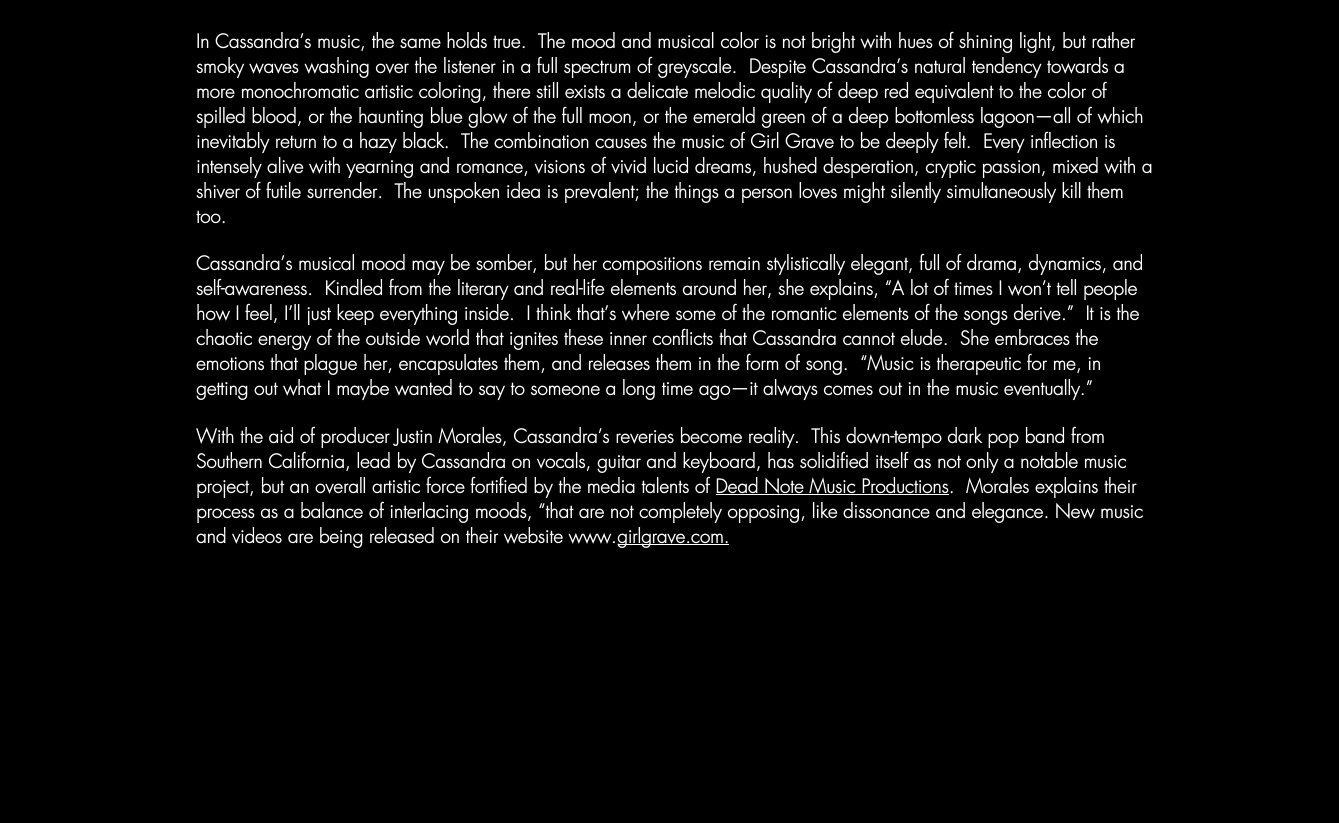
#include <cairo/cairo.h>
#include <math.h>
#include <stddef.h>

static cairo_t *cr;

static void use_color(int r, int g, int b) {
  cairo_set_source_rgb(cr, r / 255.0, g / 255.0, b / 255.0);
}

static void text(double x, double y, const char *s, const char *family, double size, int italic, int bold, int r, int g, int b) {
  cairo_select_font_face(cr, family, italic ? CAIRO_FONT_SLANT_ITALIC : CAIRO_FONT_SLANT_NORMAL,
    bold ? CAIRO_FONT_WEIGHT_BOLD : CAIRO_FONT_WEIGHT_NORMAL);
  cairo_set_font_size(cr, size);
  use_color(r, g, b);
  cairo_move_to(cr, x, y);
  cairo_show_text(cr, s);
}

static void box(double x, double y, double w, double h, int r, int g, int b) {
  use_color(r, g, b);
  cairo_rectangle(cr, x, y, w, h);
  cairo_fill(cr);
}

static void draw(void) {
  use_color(0, 0, 0);
  cairo_paint(cr);
  box(716, 494, 233, 1, 255, 255, 255);
  box(618, 544, 111, 1, 255, 255, 255);
  text(196, 48, "In Cassandra’s music, the same holds true.  The mood and musical color is not bright with hues of shining light, but rather", "futura", 18.75, 0, 1, 255, 255, 255);
  text(196, 73, "smoky waves washing over the listener in a full spectrum of greyscale.  Despite Cassandra’s natural tendency towards a", "futura", 18.75, 0, 1, 255, 255, 255);
  text(196, 98, "more monochromatic artistic coloring, there still exists a delicate melodic quality of deep red equivalent to the color of", "futura", 18.75, 0, 1, 255, 255, 255);
  text(196, 123, "spilled blood, or the haunting blue glow of the full moon, or the emerald green of a deep bottomless lagoon—all of which", "futura", 18.75, 0, 1, 255, 255, 255);
  text(196, 148, "inevitably return to a hazy black.  The combination causes the music of Girl Grave to be deeply felt.  Every inflection is", "futura", 18.75, 0, 1, 255, 255, 255);
  text(196, 173, "intensely alive with yearning and romance, visions of vivid lucid dreams, hushed desperation, cryptic passion, mixed with a", "futura", 18.75, 0, 1, 255, 255, 255);
  text(196, 198, "shiver of futile surrender.  The unspoken idea is prevalent; the things a person loves might silently simultaneously kill them", "futura", 18.75, 0, 1, 255, 255, 255);
  text(196, 223, "too.", "futura", 18.75, 0, 1, 255, 255, 255);
  text(196, 270, "Cassandra’s musical mood may be somber, but her compositions remain stylistically elegant, full of drama, dynamics, and", "futura", 18.75, 0, 1, 255, 255, 255);
  text(196, 295, "self-awareness.  Kindled from the literary and real-life elements around her, she explains, “A lot of times I won’t tell people", "futura", 18.75, 0, 1, 255, 255, 255);
  text(196, 320, "how I feel, I’ll just keep everything inside.  I think that’s where some of the romantic elements of the songs derive.”  It is the", "futura", 18.75, 0, 1, 255, 255, 255);
  text(196, 345, "chaotic energy of the outside world that ignites these inner conflicts that Cassandra cannot elude.  She embraces the", "futura", 18.75, 0, 1, 255, 255, 255);
  text(196, 370, "emotions that plague her, encapsulates them, and releases them in the form of song.  “Music is therapeutic for me, in", "futura", 18.75, 0, 1, 255, 255, 255);
  text(196, 395, "getting out what I maybe wanted to say to someone a long time ago—it always comes out in the music eventually.”", "futura", 18.75, 0, 1, 255, 255, 255);
  text(196, 443, "With the aid of producer Justin Morales, Cassandra’s reveries become reality.  This down-tempo dark pop band from", "futura", 18.75, 0, 1, 255, 255, 255);
  text(196, 468, "Southern California, lead by Cassandra on vocals, guitar and keyboard, has solidified itself as not only a notable music", "futura", 18.75, 0, 1, 255, 255, 255);
  text(196, 493, "project, but an overall artistic force fortified by the media talents of Dead Note Music Productions.  Morales explains their", "futura", 18.75, 0, 1, 255, 255, 255);
  text(196, 518, "process as a balance of interlacing moods, “that are not completely opposing, like dissonance and elegance. New music", "futura", 18.75, 0, 1, 255, 255, 255);
  text(196, 543, "and videos are being released on their website www.", "futura", 18.75, 0, 1, 255, 255, 255);
  text(617, 543, "girlgrave.com.", "futura", 18.75, 0, 1, 255, 255, 255);
}

int main(void) {
  cairo_surface_t *surface = cairo_image_surface_create(CAIRO_FORMAT_RGB24, 1339, 823);
  cr = cairo_create(surface);
  cairo_font_options_t *options = cairo_font_options_create();
  cairo_font_options_set_hint_metrics(options, CAIRO_HINT_METRICS_OFF);
  cairo_font_options_set_hint_style(options, CAIRO_HINT_STYLE_NONE);
  cairo_set_font_options(cr, options);
  cairo_set_miter_limit(cr, 4);
  draw();
  cairo_surface_write_to_png(surface, "out.png");
  cairo_font_options_destroy(options);
  cairo_destroy(cr);
  cairo_surface_destroy(surface);
  return 0;
}
